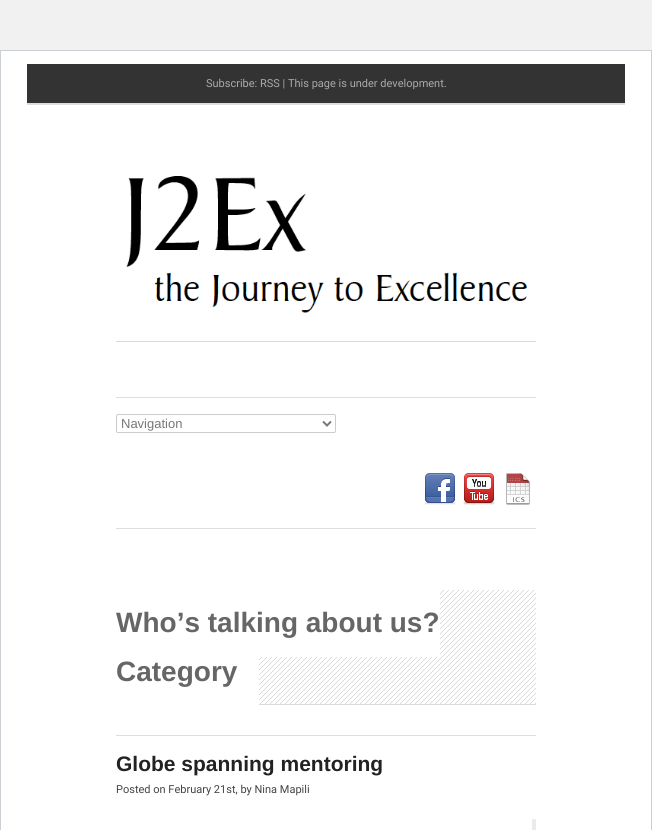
#include <cairo/cairo.h>
#include <math.h>
#include <stddef.h>

static cairo_t *cr;

static void use_color(int r, int g, int b) {
  cairo_set_source_rgb(cr, r / 255.0, g / 255.0, b / 255.0);
}

static void text(double x, double y, const char *s, const char *family, double size, int italic, int bold, int r, int g, int b) {
  cairo_select_font_face(cr, family, italic ? CAIRO_FONT_SLANT_ITALIC : CAIRO_FONT_SLANT_NORMAL,
    bold ? CAIRO_FONT_WEIGHT_BOLD : CAIRO_FONT_WEIGHT_NORMAL);
  cairo_set_font_size(cr, size);
  use_color(r, g, b);
  cairo_move_to(cr, x, y);
  cairo_show_text(cr, s);
}

static void box(double x, double y, double w, double h, int r, int g, int b) {
  use_color(r, g, b);
  cairo_rectangle(cr, x, y, w, h);
  cairo_fill(cr);
}

static void round_rect(double x, double y, double w, double h, double r) {
  cairo_new_sub_path(cr);
  cairo_arc(cr, x + w - r, y + h - r, r, 0, M_PI / 2);
  cairo_arc(cr, x + r, y + h - r, r, M_PI / 2, M_PI);
  cairo_arc(cr, x + r, y + r, r, M_PI, 1.5 * M_PI);
  cairo_arc(cr, x + w - r, y + r, r, 1.5 * M_PI, 2 * M_PI);
  cairo_close_path(cr);
}

static void picture(const char *path, double x, double y, double w, double h) {
  cairo_surface_t *image = cairo_image_surface_create_from_png(path);
  cairo_save(cr);
  cairo_set_source_surface(cr, image, x, y);
  cairo_rectangle(cr, x, y, w, h);
  cairo_fill(cr);
  cairo_restore(cr);
  cairo_surface_destroy(image);
}

static void draw(void) {
  use_color(241, 241, 241);
  cairo_paint(cr);
  use_color(255, 255, 255);
  cairo_rectangle(cr, 0.5, 50.5, 651, 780);
  cairo_fill_preserve(cr);
  use_color(204, 208, 212);
  cairo_set_line_width(cr, 1);
  cairo_stroke(cr);
  box(27, 64, 598, 39, 51, 51, 51);
  box(27, 103, 598, 2, 221, 221, 221);
  box(116, 341, 420, 1, 218, 218, 218);
  picture("img_01.png", 126, 176, 401, 137);
  box(116, 397, 420, 1, 221, 221, 221);
  round_rect(116.5, 414.5, 219, 18, 1.5);
  use_color(204, 204, 204);
  cairo_stroke(cr);
  cairo_new_path(cr);
  cairo_move_to(cr, 323, 421.5);
  cairo_line_to(cr, 327, 425.5);
  cairo_line_to(cr, 331, 421.5);
  use_color(119, 119, 119);
  cairo_set_line_width(cr, 2);
  cairo_stroke(cr);
  picture("img_02.png", 424, 473, 32, 32);
  picture("img_03.png", 463, 473, 32, 32);
  picture("img_04.png", 506, 473, 24, 32);
  box(116, 528, 420, 1, 221, 221, 221);
  picture("img_05.png", 259, 590, 277, 114);
  box(259, 704, 277, 1, 218, 218, 218);
  box(259, 590, 181, 67, 255, 255, 255);
  box(116, 735, 420, 1, 221, 221, 221);
  box(532, 819, 4, 11, 235, 235, 235);
  text(206, 87, "Subscribe: RSS | This page is under development.", "Roboto", 11, 0, 0, 170, 170, 170);
  text(121, 428, "Navigation", "Liberation Sans", 13, 0, 0, 119, 119, 119);
  text(116, 632, "Who’s talking about us?", "Liberation Sans", 28, 0, 1, 102, 102, 102);
  text(116, 681, "Category", "Liberation Sans", 28, 0, 1, 102, 102, 102);
  text(116, 771, "Globe spanning mentoring", "Liberation Sans", 21, 0, 1, 34, 34, 34);
  text(116, 793, "Posted on February 21st, by Nina Mapili", "Roboto", 11, 0, 0, 68, 68, 68);
}

int main(void) {
  cairo_surface_t *surface = cairo_image_surface_create(CAIRO_FORMAT_RGB24, 652, 830);
  cr = cairo_create(surface);
  cairo_font_options_t *options = cairo_font_options_create();
  cairo_font_options_set_hint_metrics(options, CAIRO_HINT_METRICS_OFF);
  cairo_font_options_set_hint_style(options, CAIRO_HINT_STYLE_NONE);
  cairo_set_font_options(cr, options);
  cairo_set_miter_limit(cr, 4);
  draw();
  cairo_surface_write_to_png(surface, "out.png");
  cairo_font_options_destroy(options);
  cairo_destroy(cr);
  cairo_surface_destroy(surface);
  return 0;
}
